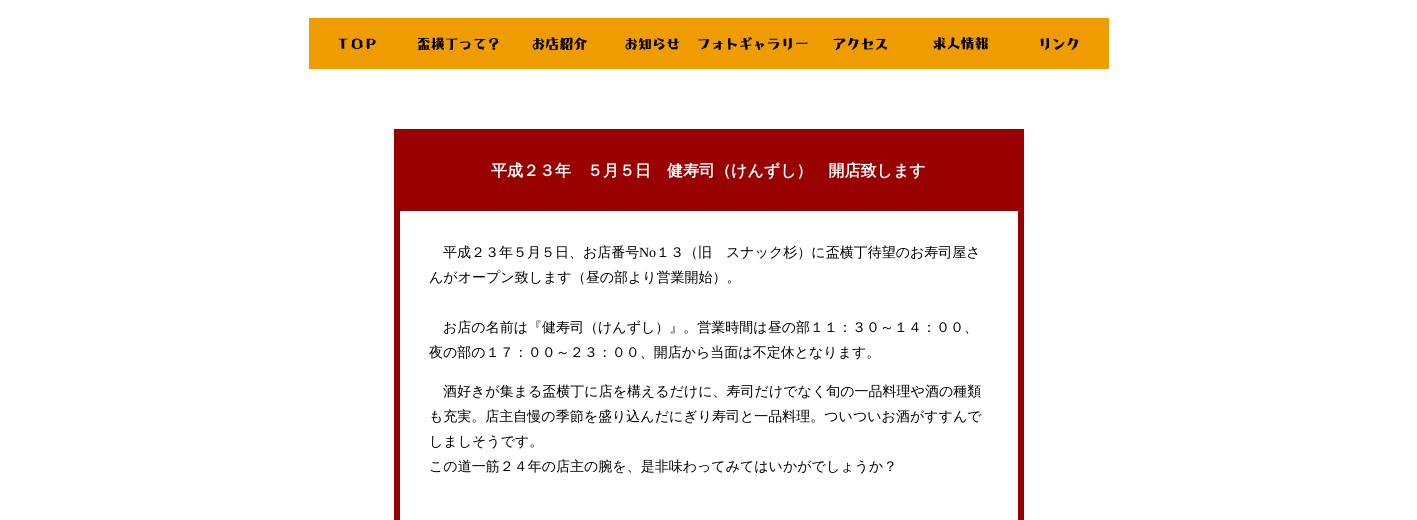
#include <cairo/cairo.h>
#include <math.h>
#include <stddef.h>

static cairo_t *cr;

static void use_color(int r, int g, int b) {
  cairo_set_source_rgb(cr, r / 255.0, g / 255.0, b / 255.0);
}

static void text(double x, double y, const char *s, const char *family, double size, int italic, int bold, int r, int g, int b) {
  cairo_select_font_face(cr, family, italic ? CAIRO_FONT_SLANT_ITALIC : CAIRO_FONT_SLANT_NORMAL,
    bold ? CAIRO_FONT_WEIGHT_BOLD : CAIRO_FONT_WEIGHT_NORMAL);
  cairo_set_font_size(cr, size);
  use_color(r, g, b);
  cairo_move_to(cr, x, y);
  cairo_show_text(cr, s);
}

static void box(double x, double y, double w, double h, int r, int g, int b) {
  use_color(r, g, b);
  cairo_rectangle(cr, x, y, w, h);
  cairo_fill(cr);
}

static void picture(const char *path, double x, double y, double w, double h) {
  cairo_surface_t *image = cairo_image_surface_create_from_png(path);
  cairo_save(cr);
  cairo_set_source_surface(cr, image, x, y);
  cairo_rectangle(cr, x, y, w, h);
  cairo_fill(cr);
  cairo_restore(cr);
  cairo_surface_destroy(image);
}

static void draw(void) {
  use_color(255, 255, 255);
  cairo_paint(cr);
  box(309, 18, 800, 51, 238, 156, 0);
  picture("img_01.png", 338, 38, 38, 11);
  picture("img_02.png", 417, 37, 82, 13);
  picture("img_03.png", 532, 37, 55, 13);
  picture("img_04.png", 625, 38, 54, 12);
  picture("img_05.png", 698, 37, 110, 13);
  picture("img_06.png", 833, 38, 55, 12);
  picture("img_07.png", 933, 37, 55, 13);
  picture("img_08.png", 1040, 38, 39, 12);
  cairo_rectangle(cr, 396.5, 131.5, 625, 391);
  use_color(153, 0, 0);
  cairo_set_line_width(cr, 5);
  cairo_stroke(cr);
  box(399, 134, 620, 76, 153, 0, 0);
  cairo_rectangle(cr, 399.5, 210.5, 619, 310);
  cairo_set_line_width(cr, 1);
  cairo_stroke(cr);
  text(491, 176, "平成２３年　５月５日　健寿司（けんずし）　開店致します", "WenQuanYi Zen Hei", 16, 0, 1, 255, 255, 255);
  text(443, 257, "平成２３年５月５日、お店番号", "WenQuanYi Zen Hei Medium", 14, 0, 0, 0, 0, 0);
  text(639, 257, "No", "Liberation Serif", 14, 0, 0, 0, 0, 0);
  text(656, 257, "１３（旧　スナック杉）に盃横丁待望のお寿司屋さ", "WenQuanYi Zen Hei Medium", 14, 0, 0, 0, 0, 0);
  text(429, 282, "んがオープン致します（昼の部より営業開始）。", "WenQuanYi Zen Hei Medium", 14, 0, 0, 0, 0, 0);
  text(443, 332, "お店の名前は『健寿司（けんずし）』。営業時間は昼の部１１：３０～１４：００、", "WenQuanYi Zen Hei Medium", 14, 0, 0, 0, 0, 0);
  text(429, 357, "夜の部の１７：００～２３：００、開店から当面は不定休となります。", "WenQuanYi Zen Hei Medium", 14, 0, 0, 0, 0, 0);
  text(443, 396, "酒好きが集まる盃横丁に店を構えるだけに、寿司だけでなく旬の一品料理や酒の種類", "WenQuanYi Zen Hei Medium", 14, 0, 0, 0, 0, 0);
  text(429, 421, "も充実。店主自慢の季節を盛り込んだにぎり寿司と一品料理。ついついお酒がすすんで", "WenQuanYi Zen Hei Medium", 14, 0, 0, 0, 0, 0);
  text(429, 446, "しましそうです。", "WenQuanYi Zen Hei Medium", 14, 0, 0, 0, 0, 0);
  text(429, 471, "この道一筋２４年の店主の腕を、是非味わってみてはいかがでしょうか？", "WenQuanYi Zen Hei Medium", 14, 0, 0, 0, 0, 0);
}

int main(void) {
  cairo_surface_t *surface = cairo_image_surface_create(CAIRO_FORMAT_RGB24, 1417, 520);
  cr = cairo_create(surface);
  cairo_font_options_t *options = cairo_font_options_create();
  cairo_font_options_set_hint_metrics(options, CAIRO_HINT_METRICS_OFF);
  cairo_font_options_set_hint_style(options, CAIRO_HINT_STYLE_NONE);
  cairo_set_font_options(cr, options);
  cairo_set_miter_limit(cr, 4);
  draw();
  cairo_surface_write_to_png(surface, "out.png");
  cairo_font_options_destroy(options);
  cairo_destroy(cr);
  cairo_surface_destroy(surface);
  return 0;
}
